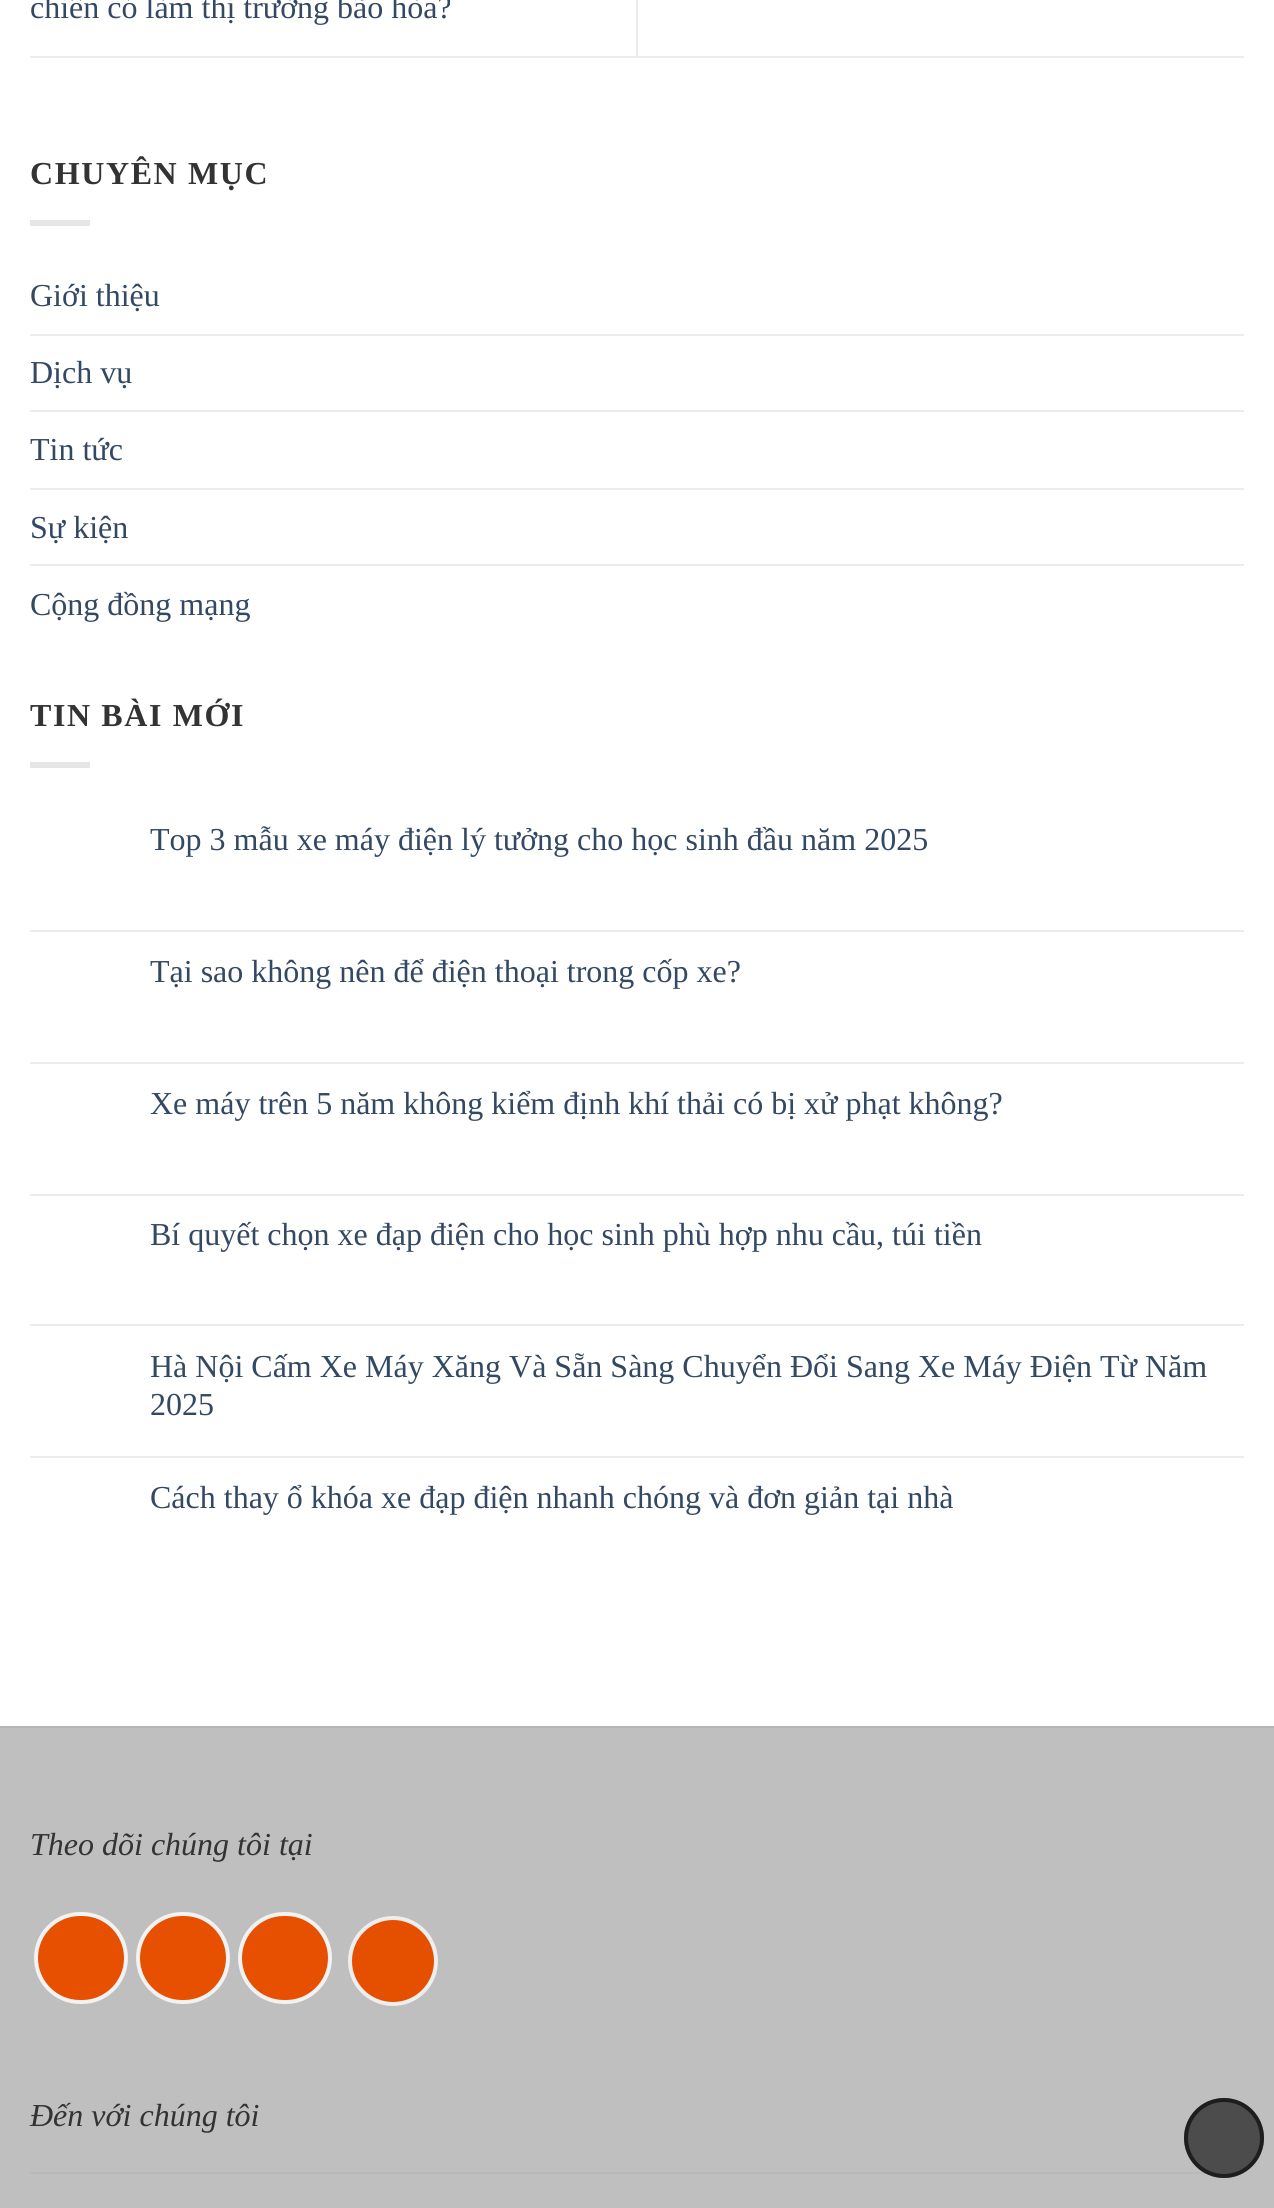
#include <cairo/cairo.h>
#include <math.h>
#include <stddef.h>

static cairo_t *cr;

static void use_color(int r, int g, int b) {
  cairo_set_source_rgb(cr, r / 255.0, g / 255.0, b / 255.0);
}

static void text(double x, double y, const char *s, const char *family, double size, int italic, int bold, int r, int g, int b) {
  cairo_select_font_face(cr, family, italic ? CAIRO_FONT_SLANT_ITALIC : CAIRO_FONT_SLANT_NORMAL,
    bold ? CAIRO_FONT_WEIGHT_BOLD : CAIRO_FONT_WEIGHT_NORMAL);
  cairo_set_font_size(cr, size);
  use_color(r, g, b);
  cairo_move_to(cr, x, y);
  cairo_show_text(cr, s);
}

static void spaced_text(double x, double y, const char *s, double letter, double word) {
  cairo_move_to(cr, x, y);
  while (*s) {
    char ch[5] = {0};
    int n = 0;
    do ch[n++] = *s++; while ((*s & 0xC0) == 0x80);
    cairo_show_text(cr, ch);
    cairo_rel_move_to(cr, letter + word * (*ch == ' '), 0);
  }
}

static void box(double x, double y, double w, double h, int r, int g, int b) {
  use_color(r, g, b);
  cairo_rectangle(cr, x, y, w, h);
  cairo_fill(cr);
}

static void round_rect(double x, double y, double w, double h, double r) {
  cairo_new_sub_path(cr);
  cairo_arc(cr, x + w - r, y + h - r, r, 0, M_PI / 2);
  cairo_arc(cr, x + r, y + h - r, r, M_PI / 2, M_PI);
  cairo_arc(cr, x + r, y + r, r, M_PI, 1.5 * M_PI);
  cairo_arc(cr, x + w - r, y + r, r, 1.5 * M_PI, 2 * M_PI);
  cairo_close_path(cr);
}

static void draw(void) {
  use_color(255, 255, 255);
  cairo_paint(cr);
  box(30, 56, 1214, 2, 236, 236, 236);
  box(636, 0, 2, 56, 236, 236, 236);
  box(30, 220, 60, 6, 230, 230, 230);
  box(30, 334, 1214, 2, 236, 236, 236);
  box(30, 410, 1214, 2, 236, 236, 236);
  box(30, 488, 1214, 2, 236, 236, 236);
  box(30, 564, 1214, 2, 236, 236, 236);
  box(30, 762, 60, 6, 230, 230, 230);
  box(30, 930, 1214, 2, 236, 236, 236);
  box(30, 1062, 1214, 2, 236, 236, 236);
  box(30, 1194, 1214, 2, 236, 236, 236);
  box(30, 1324, 1214, 2, 236, 236, 236);
  box(30, 1456, 1214, 2, 236, 236, 236);
  box(0, 1728, 1274, 480, 191, 191, 191);
  box(0, 1726, 1274, 2, 181, 181, 181);
  use_color(230, 80, 0);
  round_rect(36, 1914, 90, 88, 44);
  cairo_fill_preserve(cr);
  use_color(242, 242, 242);
  cairo_set_line_width(cr, 4);
  cairo_stroke(cr);
  use_color(230, 80, 0);
  round_rect(138, 1914, 90, 88, 44);
  cairo_fill_preserve(cr);
  use_color(242, 242, 242);
  cairo_stroke(cr);
  use_color(230, 80, 0);
  round_rect(240, 1914, 90, 88, 44);
  cairo_fill_preserve(cr);
  use_color(242, 242, 242);
  cairo_stroke(cr);
  use_color(229, 79, 0);
  cairo_arc(cr, 393, 1961, 43, 0, 2 * M_PI);
  cairo_fill_preserve(cr);
  use_color(238, 238, 238);
  cairo_stroke(cr);
  box(30, 2172, 1214, 2, 185, 185, 185);
  cairo_set_source_rgba(cr, 0, 0, 0, 0.6);
  cairo_arc(cr, 1224, 2138, 40, 0, 2 * M_PI);
  cairo_fill(cr);
  cairo_arc(cr, 1224, 2138, 38, 0, 2 * M_PI);
  cairo_stroke(cr);
  text(30, 18, "chiến có làm thị trường bão hòa?", "Liberation Serif", 32, 0, 0, 51, 72, 98);
  cairo_select_font_face(cr, "Liberation Serif", CAIRO_FONT_SLANT_NORMAL, CAIRO_FONT_WEIGHT_BOLD);
  use_color(51, 51, 51);
  spaced_text(30, 184, "CHUYÊN MỤC", 1.6, 0);
  text(30, 306, "Giới thiệu", "Liberation Serif", 32, 0, 0, 51, 72, 98);
  text(30, 383, "Dịch vụ", "Liberation Serif", 32, 0, 0, 51, 72, 98);
  text(30, 460, "Tin tức", "Liberation Serif", 32, 0, 0, 51, 72, 98);
  text(30, 538, "Sự kiện", "Liberation Serif", 32, 0, 0, 51, 72, 98);
  text(30, 615, "Cộng đồng mạng", "Liberation Serif", 32, 0, 0, 51, 72, 98);
  cairo_select_font_face(cr, "Liberation Serif", CAIRO_FONT_SLANT_NORMAL, CAIRO_FONT_WEIGHT_BOLD);
  use_color(51, 51, 51);
  spaced_text(30, 726, "TIN BÀI MỚI", 1.6, 0);
  text(150, 850, "Top 3 mẫu xe máy điện lý tưởng cho học sinh đầu năm 2025", "Liberation Serif", 32, 0, 0, 51, 72, 98);
  text(150, 982, "Tại sao không nên để điện thoại trong cốp xe?", "Liberation Serif", 32, 0, 0, 51, 72, 98);
  text(150, 1114, "Xe máy trên 5 năm không kiểm định khí thải có bị xử phạt không?", "Liberation Serif", 32, 0, 0, 51, 72, 98);
  text(150, 1245, "Bí quyết chọn xe đạp điện cho học sinh phù hợp nhu cầu, túi tiền", "Liberation Serif", 32, 0, 0, 51, 72, 98);
  text(150, 1377, "Hà Nội Cấm Xe Máy Xăng Và Sẵn Sàng Chuyển Đổi Sang Xe Máy Điện Từ Năm", "Liberation Serif", 32, 0, 0, 51, 72, 98);
  text(150, 1415, "2025", "Liberation Serif", 32, 0, 0, 51, 72, 98);
  text(150, 1508, "Cách thay ổ khóa xe đạp điện nhanh chóng và đơn giản tại nhà", "Liberation Serif", 32, 0, 0, 51, 72, 98);
  text(30, 1855, "Theo dõi chúng tôi tại", "Liberation Serif", 32, 1, 0, 51, 51, 51);
  text(30, 2126, "Đến với chúng tôi", "Liberation Serif", 32, 1, 0, 51, 51, 51);
}

int main(void) {
  cairo_surface_t *surface = cairo_image_surface_create(CAIRO_FORMAT_RGB24, 1274, 2208);
  cr = cairo_create(surface);
  cairo_font_options_t *options = cairo_font_options_create();
  cairo_font_options_set_hint_metrics(options, CAIRO_HINT_METRICS_OFF);
  cairo_font_options_set_hint_style(options, CAIRO_HINT_STYLE_NONE);
  cairo_set_font_options(cr, options);
  cairo_set_miter_limit(cr, 4);
  draw();
  cairo_surface_write_to_png(surface, "out.png");
  cairo_font_options_destroy(options);
  cairo_destroy(cr);
  cairo_surface_destroy(surface);
  return 0;
}
